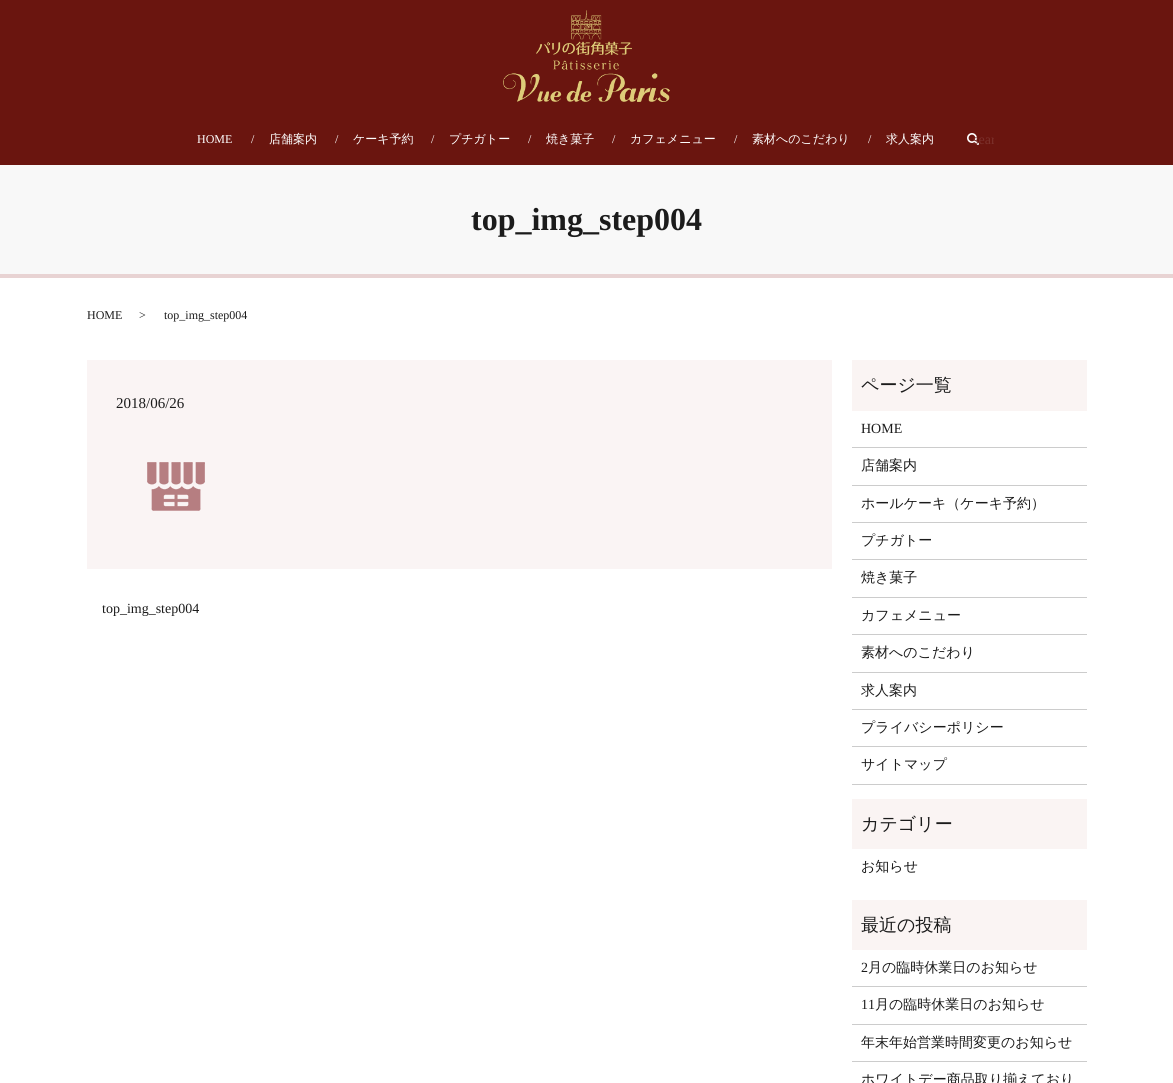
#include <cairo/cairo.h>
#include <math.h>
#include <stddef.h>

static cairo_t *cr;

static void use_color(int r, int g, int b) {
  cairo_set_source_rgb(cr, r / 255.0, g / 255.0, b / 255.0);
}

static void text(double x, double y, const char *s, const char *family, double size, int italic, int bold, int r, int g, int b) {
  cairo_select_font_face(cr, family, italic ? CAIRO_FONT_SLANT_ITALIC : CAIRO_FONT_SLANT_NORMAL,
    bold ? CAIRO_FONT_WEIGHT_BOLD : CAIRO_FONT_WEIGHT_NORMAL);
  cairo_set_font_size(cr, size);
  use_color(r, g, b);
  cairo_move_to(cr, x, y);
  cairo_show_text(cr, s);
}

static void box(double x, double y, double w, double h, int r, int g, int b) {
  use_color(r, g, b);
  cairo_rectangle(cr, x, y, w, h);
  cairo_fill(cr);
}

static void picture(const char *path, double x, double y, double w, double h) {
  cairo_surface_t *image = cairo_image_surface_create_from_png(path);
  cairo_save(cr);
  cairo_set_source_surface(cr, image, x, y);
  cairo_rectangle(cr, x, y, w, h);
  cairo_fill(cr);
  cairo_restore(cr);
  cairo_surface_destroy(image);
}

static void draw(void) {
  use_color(255, 255, 255);
  cairo_paint(cr);
  box(0, 0, 1173, 165, 106, 21, 15);
  picture("img_01.png", 503, 10, 167, 92);
  picture("img_02.png", 967, 133, 12, 12);
  box(0, 165, 1173, 109, 248, 248, 248);
  box(0, 274, 1173, 4, 232, 211, 211);
  box(87, 360, 745, 209, 250, 244, 244);
  picture("img_03.png", 147, 462, 58, 49);
  box(852, 360, 235, 51, 250, 244, 243);
  box(852, 447, 235, 1, 204, 204, 204);
  box(852, 485, 235, 1, 204, 204, 204);
  box(852, 522, 235, 1, 204, 204, 204);
  box(852, 559, 235, 1, 204, 204, 204);
  box(852, 597, 235, 1, 204, 204, 204);
  box(852, 634, 235, 1, 204, 204, 204);
  box(852, 672, 235, 1, 204, 204, 204);
  box(852, 709, 235, 1, 204, 204, 204);
  box(852, 746, 235, 1, 204, 204, 204);
  box(852, 784, 235, 1, 204, 204, 204);
  box(852, 799, 235, 50, 250, 244, 243);
  box(852, 900, 235, 50, 250, 244, 243);
  box(852, 986, 235, 1, 204, 204, 204);
  box(852, 1024, 235, 1, 204, 204, 204);
  box(852, 1061, 235, 1, 204, 204, 204);
  text(197, 143, "HOME", "Liberation Serif", 12, 0, 0, 255, 255, 255);
  text(251, 143, "/", "Liberation Serif", 12, 0, 0, 255, 255, 255);
  text(269, 143, "店舗案内", "WenQuanYi Zen Hei Medium", 12, 0, 0, 255, 255, 255);
  text(335, 143, "/", "Liberation Serif", 12, 0, 0, 255, 255, 255);
  text(353, 143, "ケーキ予約", "WenQuanYi Zen Hei Medium", 12, 0, 0, 255, 255, 255);
  text(431, 143, "/", "Liberation Serif", 12, 0, 0, 255, 255, 255);
  text(449, 143, "プチガトー", "WenQuanYi Zen Hei Medium", 12, 0, 0, 255, 255, 255);
  text(528, 143, "/", "Liberation Serif", 12, 0, 0, 255, 255, 255);
  text(546, 143, "焼き菓子", "WenQuanYi Zen Hei Medium", 12, 0, 0, 255, 255, 255);
  text(612, 143, "/", "Liberation Serif", 12, 0, 0, 255, 255, 255);
  text(630, 143, "カフェメニュー", "WenQuanYi Zen Hei Medium", 12, 0, 0, 255, 255, 255);
  text(734, 143, "/", "Liberation Serif", 12, 0, 0, 255, 255, 255);
  text(752, 143, "素材へのこだわり", "WenQuanYi Zen Hei Medium", 12, 0, 0, 255, 255, 255);
  text(868, 143, "/", "Liberation Serif", 12, 0, 0, 255, 255, 255);
  text(886, 143, "求人案内", "WenQuanYi Zen Hei Medium", 12, 0, 0, 255, 255, 255);
  cairo_save(cr);
  cairo_rectangle(cr, 952, 125, 42, 28);
  cairo_clip(cr);
  text(973, 144, "sear", "Liberation Serif", 14, 0, 0, 123, 48, 43);
  cairo_restore(cr);
  text(471, 230, "top_img_step004", "Liberation Serif", 32, 0, 1, 27, 27, 27);
  text(87, 319, "HOME", "Liberation Serif", 12, 0, 0, 27, 27, 27);
  text(139, 319, ">", "Liberation Serif", 12, 0, 0, 27, 27, 27);
  text(164, 319, "top_img_step004", "Liberation Serif", 12, 0, 0, 27, 27, 27);
  text(116, 408, "2018/06/26", "Liberation Serif", 15, 0, 0, 27, 27, 27);
  text(102, 613, "top_img_step004", "Liberation Serif", 14, 0, 0, 27, 27, 27);
  text(861, 391, "ページ一覧", "WenQuanYi Zen Hei Medium", 18, 0, 0, 27, 27, 27);
  text(861, 433, "HOME", "Liberation Serif", 14, 0, 0, 27, 27, 27);
  text(861, 470, "店舗案内", "WenQuanYi Zen Hei Medium", 14, 0, 0, 27, 27, 27);
  text(861, 508, "ホールケーキ（ケーキ予約）", "WenQuanYi Zen Hei Medium", 14, 0, 0, 27, 27, 27);
  text(861, 545, "プチガトー", "WenQuanYi Zen Hei Medium", 14, 0, 0, 27, 27, 27);
  text(861, 582, "焼き菓子", "WenQuanYi Zen Hei Medium", 14, 0, 0, 27, 27, 27);
  text(861, 620, "カフェメニュー", "WenQuanYi Zen Hei Medium", 14, 0, 0, 27, 27, 27);
  text(861, 657, "素材へのこだわり", "WenQuanYi Zen Hei Medium", 14, 0, 0, 27, 27, 27);
  text(861, 695, "求人案内", "WenQuanYi Zen Hei Medium", 14, 0, 0, 27, 27, 27);
  text(861, 732, "プライバシーポリシー", "WenQuanYi Zen Hei Medium", 14, 0, 0, 27, 27, 27);
  text(861, 769, "サイトマップ", "WenQuanYi Zen Hei Medium", 14, 0, 0, 27, 27, 27);
  text(861, 830, "カテゴリー", "WenQuanYi Zen Hei Medium", 18, 0, 0, 27, 27, 27);
  text(861, 871, "お知らせ", "WenQuanYi Zen Hei Medium", 14, 0, 0, 27, 27, 27);
  text(861, 931, "最近の投稿", "WenQuanYi Zen Hei Medium", 18, 0, 0, 27, 27, 27);
  text(861, 972, "2", "Liberation Serif", 14, 0, 0, 27, 27, 27);
  text(868, 972, "月の臨時休業日のお知らせ", "WenQuanYi Zen Hei Medium", 14, 0, 0, 27, 27, 27);
  text(861, 1009, "11", "Liberation Serif", 14, 0, 0, 27, 27, 27);
  text(875, 1009, "月の臨時休業日のお知らせ", "WenQuanYi Zen Hei Medium", 14, 0, 0, 27, 27, 27);
  text(861, 1047, "年末年始営業時間変更のお知らせ", "WenQuanYi Zen Hei Medium", 14, 0, 0, 27, 27, 27);
  text(861, 1084, "ホワイトデー商品取り揃えており", "WenQuanYi Zen Hei Medium", 14, 0, 0, 27, 27, 27);
}

int main(void) {
  cairo_surface_t *surface = cairo_image_surface_create(CAIRO_FORMAT_RGB24, 1173, 1083);
  cr = cairo_create(surface);
  cairo_font_options_t *options = cairo_font_options_create();
  cairo_font_options_set_hint_metrics(options, CAIRO_HINT_METRICS_OFF);
  cairo_font_options_set_hint_style(options, CAIRO_HINT_STYLE_NONE);
  cairo_set_font_options(cr, options);
  cairo_set_miter_limit(cr, 4);
  draw();
  cairo_surface_write_to_png(surface, "out.png");
  cairo_font_options_destroy(options);
  cairo_destroy(cr);
  cairo_surface_destroy(surface);
  return 0;
}
